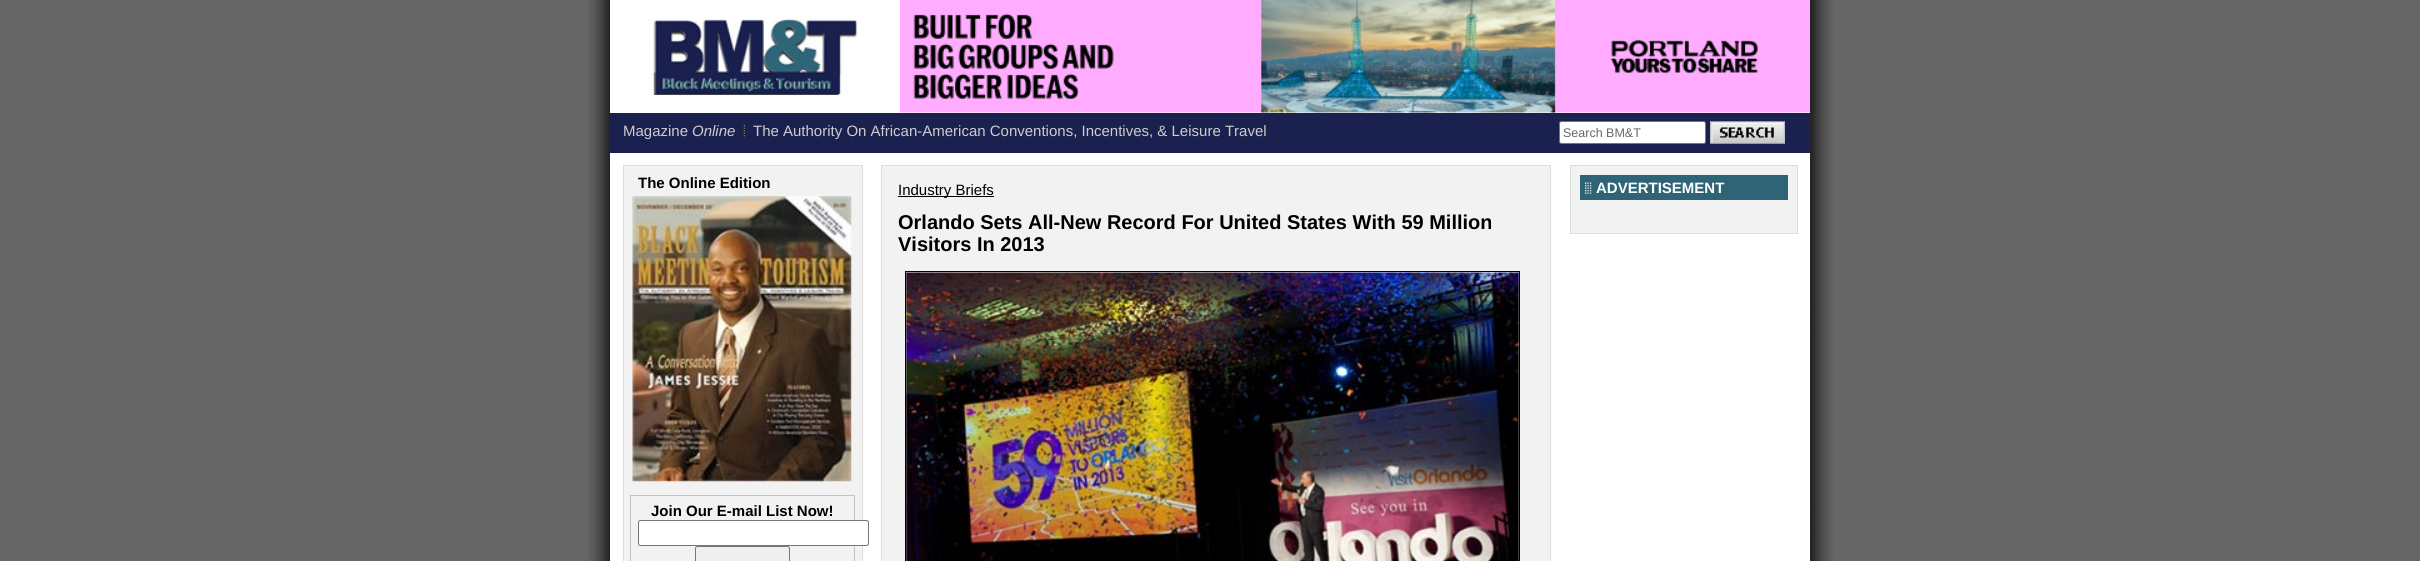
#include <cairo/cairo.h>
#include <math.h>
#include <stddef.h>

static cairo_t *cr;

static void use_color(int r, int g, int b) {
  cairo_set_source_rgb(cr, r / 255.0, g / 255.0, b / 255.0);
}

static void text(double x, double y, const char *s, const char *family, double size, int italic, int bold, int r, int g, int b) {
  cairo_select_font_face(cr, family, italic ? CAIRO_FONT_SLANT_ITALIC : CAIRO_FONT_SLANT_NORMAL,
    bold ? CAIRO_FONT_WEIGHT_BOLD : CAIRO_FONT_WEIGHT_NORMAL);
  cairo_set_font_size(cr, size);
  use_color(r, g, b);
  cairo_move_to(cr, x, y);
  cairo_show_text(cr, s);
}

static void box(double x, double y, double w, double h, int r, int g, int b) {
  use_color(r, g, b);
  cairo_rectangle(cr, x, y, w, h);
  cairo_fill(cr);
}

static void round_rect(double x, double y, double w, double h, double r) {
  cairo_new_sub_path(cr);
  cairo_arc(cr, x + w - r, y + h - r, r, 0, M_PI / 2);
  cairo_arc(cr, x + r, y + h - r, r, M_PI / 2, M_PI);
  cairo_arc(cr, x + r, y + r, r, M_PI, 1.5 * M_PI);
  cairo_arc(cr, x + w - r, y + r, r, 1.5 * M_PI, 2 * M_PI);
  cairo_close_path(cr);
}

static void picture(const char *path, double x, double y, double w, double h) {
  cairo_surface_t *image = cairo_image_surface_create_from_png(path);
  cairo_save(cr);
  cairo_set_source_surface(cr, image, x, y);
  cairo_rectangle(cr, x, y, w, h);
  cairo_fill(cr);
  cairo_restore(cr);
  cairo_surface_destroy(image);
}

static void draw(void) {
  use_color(102, 102, 102);
  cairo_paint(cr);
  picture("img_01.png", 588, 0, 1245, 561);
  box(610, 0, 1200, 113, 255, 255, 255);
  picture("img_02.png", 647, 18, 211, 77);
  picture("img_03.png", 900, 0, 910, 113);
  box(610, 113, 1200, 40, 26, 33, 79);
  picture("img_04.png", 743, 125, 2, 12);
  use_color(255, 255, 255);
  round_rect(1559.5, 121.5, 146, 22, 2);
  cairo_fill_preserve(cr);
  use_color(118, 118, 118);
  cairo_set_line_width(cr, 1);
  cairo_stroke(cr);
  picture("img_05.png", 1710, 121, 75, 23);
  box(610, 153, 1200, 408, 255, 255, 255);
  use_color(242, 242, 242);
  cairo_rectangle(cr, 623.5, 165.5, 239, 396);
  cairo_fill_preserve(cr);
  use_color(221, 221, 221);
  cairo_stroke(cr);
  picture("img_06.png", 632, 196, 220, 286);
  cairo_rectangle(cr, 630.5, 495.5, 224, 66);
  use_color(194, 194, 194);
  cairo_stroke(cr);
  use_color(255, 255, 255);
  round_rect(638.5, 520.5, 230, 25, 2);
  cairo_fill_preserve(cr);
  use_color(118, 118, 118);
  cairo_stroke(cr);
  use_color(239, 239, 239);
  round_rect(695.5, 546.5, 94, 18, 2);
  cairo_fill_preserve(cr);
  use_color(118, 118, 118);
  cairo_stroke(cr);
  use_color(242, 242, 242);
  cairo_rectangle(cr, 881.5, 165.5, 669, 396);
  cairo_fill_preserve(cr);
  use_color(221, 221, 221);
  cairo_stroke(cr);
  box(898, 196, 96, 1, 0, 0, 0);
  cairo_rectangle(cr, 905.5, 271.5, 614, 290);
  cairo_stroke(cr);
  picture("img_07.png", 906, 272, 613, 289);
  use_color(242, 242, 242);
  cairo_rectangle(cr, 1570.5, 165.5, 227, 68);
  cairo_fill_preserve(cr);
  use_color(221, 221, 221);
  cairo_stroke(cr);
  box(1580, 175, 208, 25, 47, 100, 118);
  picture("img_08.png", 1585, 182, 7, 12);
  text(623, 136, "Magazine", "Liberation Sans", 15, 0, 0, 205, 205, 205);
  text(692, 136, "Online", "Liberation Sans", 15, 1, 0, 205, 205, 205);
  text(753, 136, "The Authority On African-American Conventions, Incentives, & Leisure Travel", "Liberation Sans", 15, 0, 0, 205, 205, 205);
  text(1563, 137, "Search BM&T", "Liberation Sans", 12.5, 0, 0, 102, 102, 102);
  text(638, 188, "The Online Edition", "Liberation Sans", 15, 0, 1, 0, 0, 0);
  text(651, 516, "Join Our E-mail List Now!", "Liberation Sans", 15, 0, 1, 0, 0, 0);
  text(898, 195, "Industry Briefs", "Liberation Sans", 15, 0, 0, 0, 0, 0);
  text(898, 229, "Orlando Sets All-New Record For United States With 59 Million", "Liberation Sans", 20, 0, 1, 0, 0, 0);
  text(898, 251, "Visitors In 2013", "Liberation Sans", 20, 0, 1, 0, 0, 0);
  text(1596, 193, "ADVERTISEMENT", "Liberation Sans", 15, 0, 1, 255, 255, 255);
}

int main(void) {
  cairo_surface_t *surface = cairo_image_surface_create(CAIRO_FORMAT_RGB24, 2420, 561);
  cr = cairo_create(surface);
  cairo_font_options_t *options = cairo_font_options_create();
  cairo_font_options_set_hint_metrics(options, CAIRO_HINT_METRICS_OFF);
  cairo_font_options_set_hint_style(options, CAIRO_HINT_STYLE_NONE);
  cairo_set_font_options(cr, options);
  cairo_set_miter_limit(cr, 4);
  draw();
  cairo_surface_write_to_png(surface, "out.png");
  cairo_font_options_destroy(options);
  cairo_destroy(cr);
  cairo_surface_destroy(surface);
  return 0;
}
